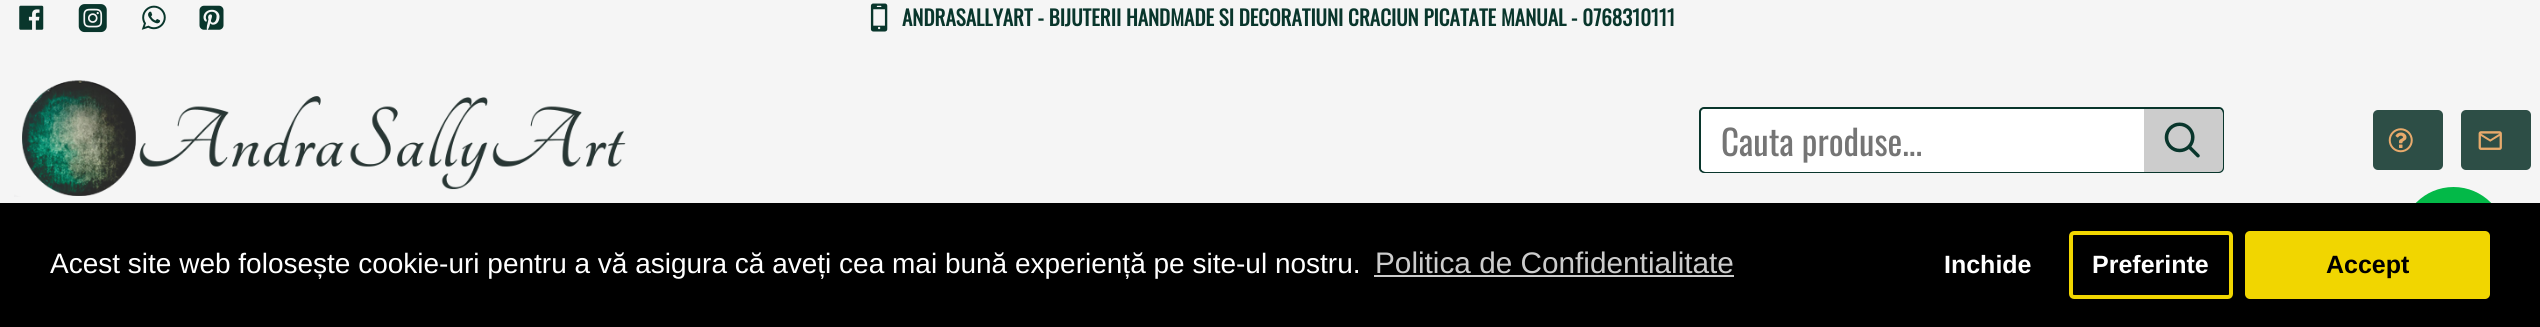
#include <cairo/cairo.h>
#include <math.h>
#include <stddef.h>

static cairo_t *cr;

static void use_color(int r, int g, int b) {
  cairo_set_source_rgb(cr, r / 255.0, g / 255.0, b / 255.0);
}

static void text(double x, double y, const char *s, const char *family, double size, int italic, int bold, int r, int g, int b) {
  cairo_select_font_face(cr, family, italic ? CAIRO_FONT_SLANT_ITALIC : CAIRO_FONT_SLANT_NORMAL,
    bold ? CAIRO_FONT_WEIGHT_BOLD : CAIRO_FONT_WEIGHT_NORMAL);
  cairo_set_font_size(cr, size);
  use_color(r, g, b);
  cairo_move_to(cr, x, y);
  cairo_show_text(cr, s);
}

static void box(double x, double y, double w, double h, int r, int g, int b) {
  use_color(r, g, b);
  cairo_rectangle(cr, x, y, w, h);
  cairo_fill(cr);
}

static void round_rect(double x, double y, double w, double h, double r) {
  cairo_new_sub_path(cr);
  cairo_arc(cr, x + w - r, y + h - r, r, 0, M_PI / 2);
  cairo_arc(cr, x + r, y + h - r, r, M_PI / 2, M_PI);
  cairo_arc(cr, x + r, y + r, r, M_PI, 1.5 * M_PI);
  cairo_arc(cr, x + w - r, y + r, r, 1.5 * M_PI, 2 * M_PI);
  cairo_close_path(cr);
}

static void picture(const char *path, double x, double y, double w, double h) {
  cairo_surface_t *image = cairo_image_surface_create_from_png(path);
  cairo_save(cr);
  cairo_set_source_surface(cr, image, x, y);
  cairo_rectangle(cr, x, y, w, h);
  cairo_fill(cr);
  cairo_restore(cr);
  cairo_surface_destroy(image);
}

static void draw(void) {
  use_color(245, 245, 245);
  cairo_paint(cr);
  picture("img_01.png", 19, 5, 25, 25);
  picture("img_02.png", 78, 4, 29, 29);
  picture("img_03.png", 141, 5, 25, 25);
  picture("img_04.png", 199, 5, 25, 25);
  picture("img_05.png", 870, 3, 18, 29);
  picture("img_06.png", 14, 80, 612, 117);
  round_rect(1700, 108, 523, 64, 4);
  use_color(9, 54, 44);
  cairo_stroke(cr);
  use_color(255, 255, 255);
  cairo_new_path(cr);
  cairo_move_to(cr, 1706, 109);
  cairo_line_to(cr, 2144, 109);
  cairo_line_to(cr, 2144, 172);
  cairo_line_to(cr, 1706, 172);
  cairo_curve_to(cr, 1703, 172, 1701, 170, 1701, 167);
  cairo_line_to(cr, 1701, 114);
  cairo_curve_to(cr, 1701, 111, 1703, 109, 1706, 109);
  cairo_close_path(cr);
  cairo_fill(cr);
  use_color(204, 204, 204);
  cairo_new_path(cr);
  cairo_move_to(cr, 2144, 109);
  cairo_line_to(cr, 2218, 109);
  cairo_curve_to(cr, 2221, 109, 2223, 111, 2223, 114);
  cairo_line_to(cr, 2223, 167);
  cairo_curve_to(cr, 2223, 170, 2221, 172, 2218, 172);
  cairo_line_to(cr, 2144, 172);
  cairo_close_path(cr);
  cairo_fill(cr);
  picture("img_07.png", 2164, 122, 36, 36);
  use_color(45, 78, 70);
  round_rect(2373, 110, 70, 60, 5);
  cairo_fill(cr);
  picture("img_08.png", 2388, 128, 25, 25);
  round_rect(2461, 110, 70, 60, 5);
  cairo_fill(cr);
  picture("img_09.png", 2478, 131, 24, 19);
  use_color(3, 185, 72);
  cairo_arc(cr, 2453.5, 239.5, 52.5, 0, 2 * M_PI);
  cairo_fill(cr);
  box(0, 203, 2540, 124, 0, 0, 0);
  box(1374, 275, 360, 2, 204, 204, 204);
  round_rect(2071, 233, 160, 64, 3);
  use_color(241, 214, 0);
  cairo_set_line_width(cr, 4);
  cairo_stroke(cr);
  round_rect(2245, 231, 245, 68, 5);
  cairo_fill(cr);
  text(902, 26, "ANDRASALLYART - BIJUTERII HANDMADE SI DECORATIUNI CRACIUN PICATATE MANUAL - 0768310111", "Oswald", 21, 0, 1, 9, 54, 44);
  text(1721, 156, "Cauta produse...", "Oswald", 35, 0, 0, 117, 117, 117);
  text(50, 273, "Acest site web folosește cookie-uri pentru a vă asigura că aveți cea mai bună experiență pe site-ul nostru.", "Liberation Sans", 28, 0, 0, 255, 255, 255);
  text(1375, 273, "Politica de Confidentialitate", "Liberation Sans", 29.75, 0, 0, 204, 204, 204);
  text(1944, 273, "Inchide", "Liberation Sans", 25, 0, 1, 255, 255, 255);
  text(2092, 273, "Preferinte", "Liberation Sans", 25, 0, 1, 255, 255, 255);
  text(2326, 273, "Accept", "Liberation Sans", 25, 0, 1, 0, 0, 0);
}

int main(void) {
  cairo_surface_t *surface = cairo_image_surface_create(CAIRO_FORMAT_RGB24, 2540, 327);
  cr = cairo_create(surface);
  cairo_font_options_t *options = cairo_font_options_create();
  cairo_font_options_set_hint_metrics(options, CAIRO_HINT_METRICS_OFF);
  cairo_font_options_set_hint_style(options, CAIRO_HINT_STYLE_NONE);
  cairo_set_font_options(cr, options);
  cairo_set_miter_limit(cr, 4);
  draw();
  cairo_surface_write_to_png(surface, "out.png");
  cairo_font_options_destroy(options);
  cairo_destroy(cr);
  cairo_surface_destroy(surface);
  return 0;
}
